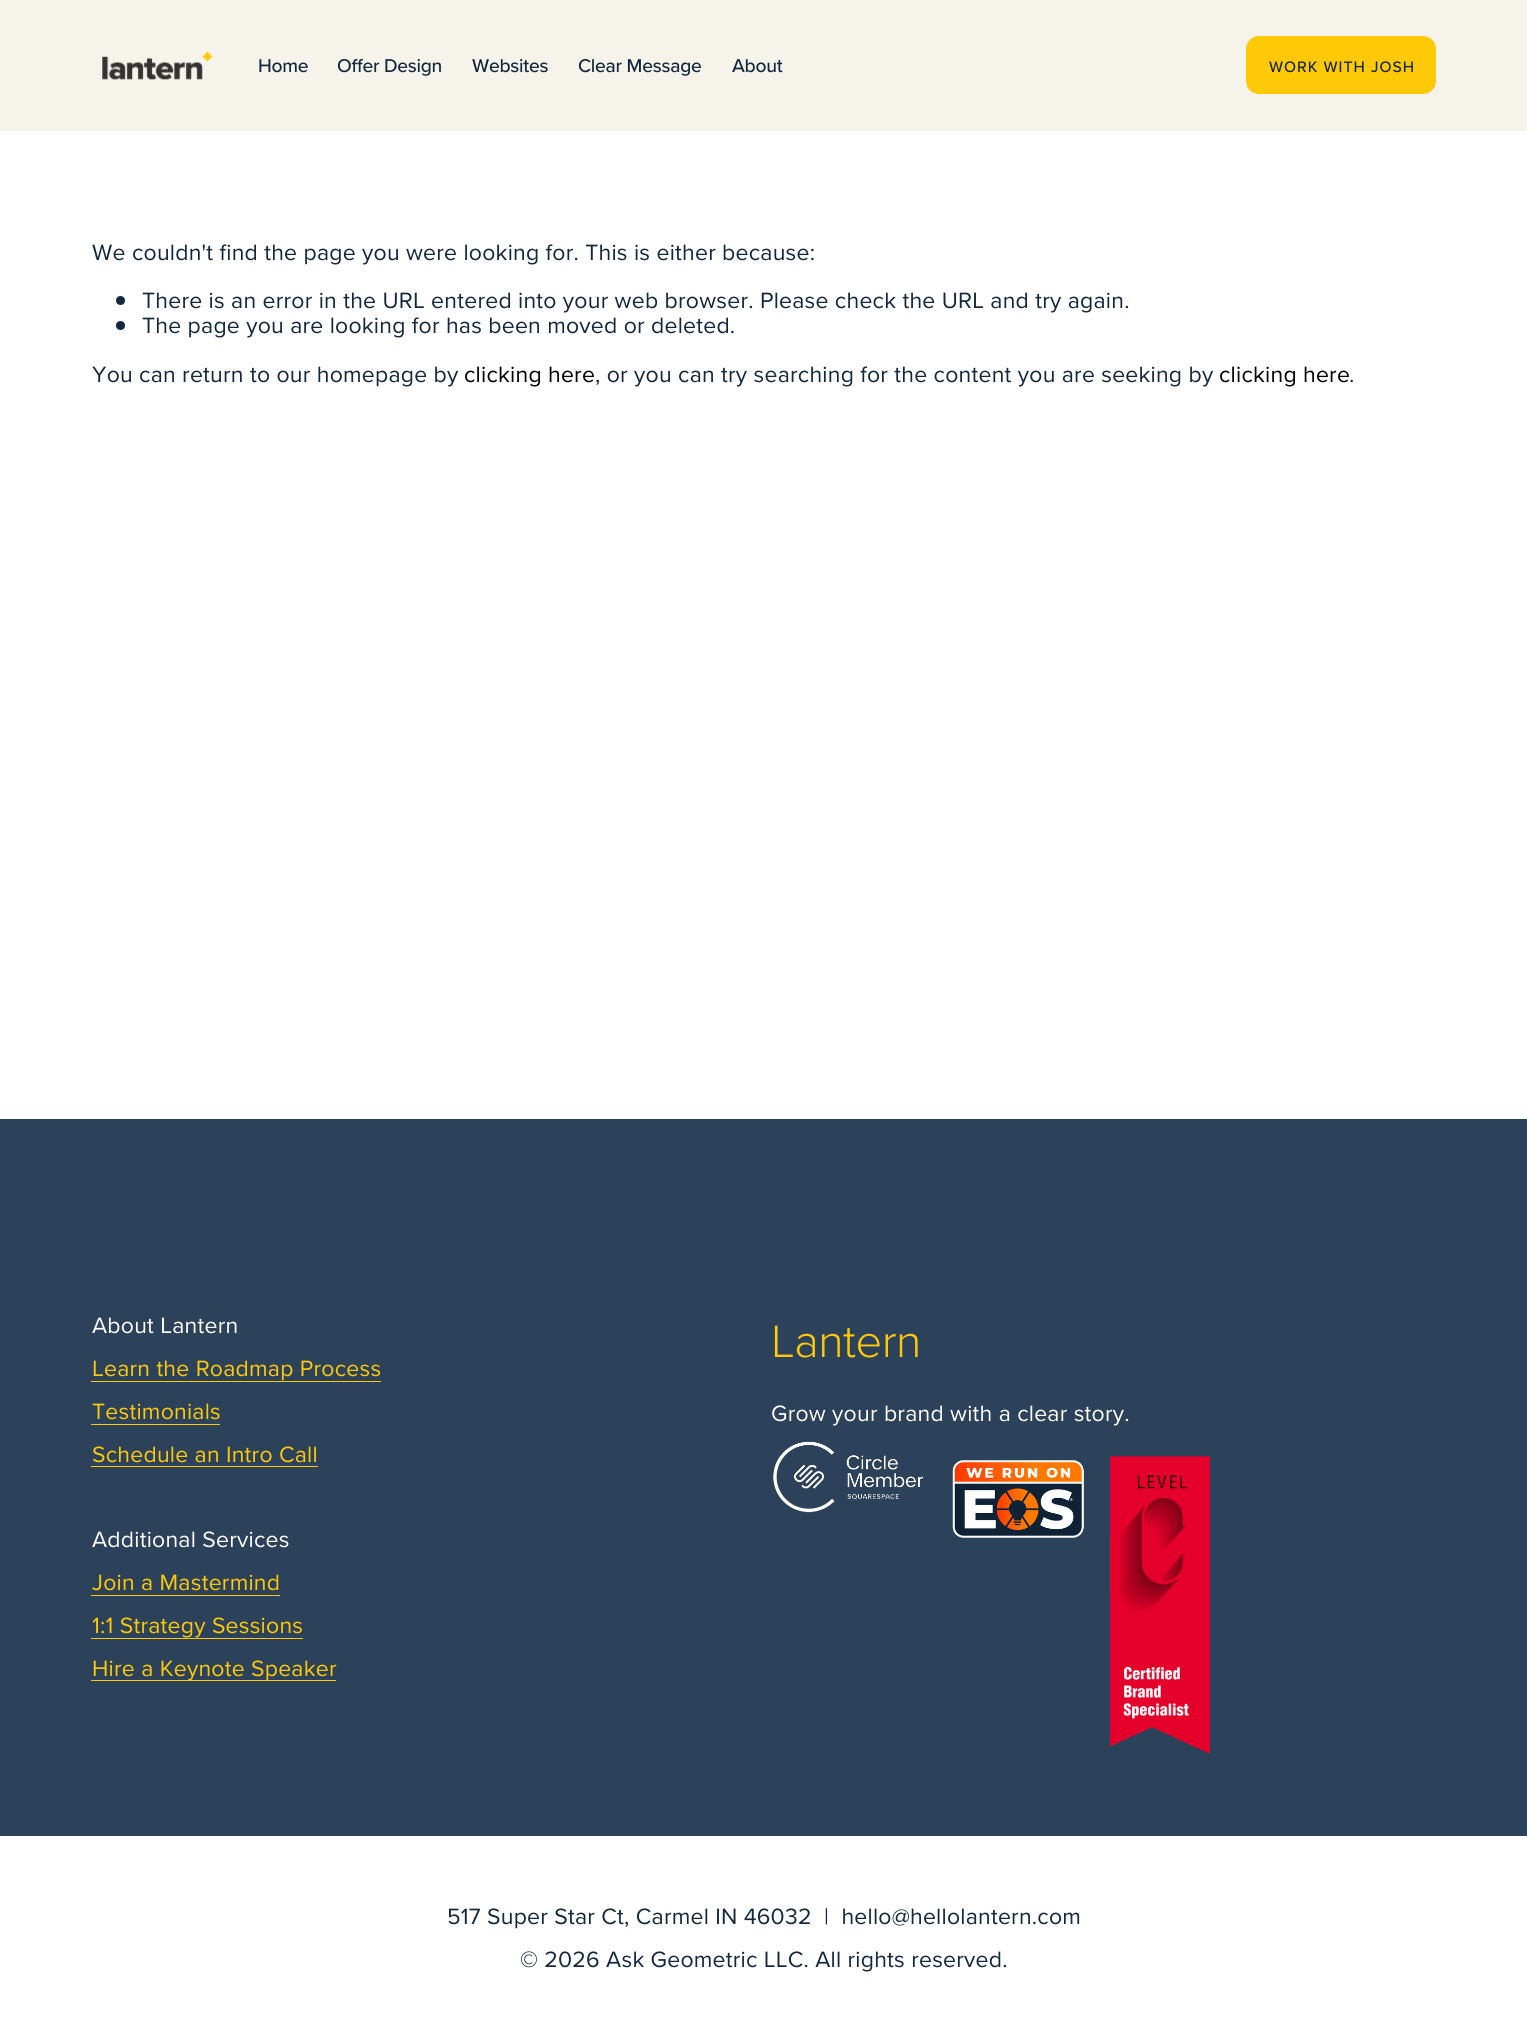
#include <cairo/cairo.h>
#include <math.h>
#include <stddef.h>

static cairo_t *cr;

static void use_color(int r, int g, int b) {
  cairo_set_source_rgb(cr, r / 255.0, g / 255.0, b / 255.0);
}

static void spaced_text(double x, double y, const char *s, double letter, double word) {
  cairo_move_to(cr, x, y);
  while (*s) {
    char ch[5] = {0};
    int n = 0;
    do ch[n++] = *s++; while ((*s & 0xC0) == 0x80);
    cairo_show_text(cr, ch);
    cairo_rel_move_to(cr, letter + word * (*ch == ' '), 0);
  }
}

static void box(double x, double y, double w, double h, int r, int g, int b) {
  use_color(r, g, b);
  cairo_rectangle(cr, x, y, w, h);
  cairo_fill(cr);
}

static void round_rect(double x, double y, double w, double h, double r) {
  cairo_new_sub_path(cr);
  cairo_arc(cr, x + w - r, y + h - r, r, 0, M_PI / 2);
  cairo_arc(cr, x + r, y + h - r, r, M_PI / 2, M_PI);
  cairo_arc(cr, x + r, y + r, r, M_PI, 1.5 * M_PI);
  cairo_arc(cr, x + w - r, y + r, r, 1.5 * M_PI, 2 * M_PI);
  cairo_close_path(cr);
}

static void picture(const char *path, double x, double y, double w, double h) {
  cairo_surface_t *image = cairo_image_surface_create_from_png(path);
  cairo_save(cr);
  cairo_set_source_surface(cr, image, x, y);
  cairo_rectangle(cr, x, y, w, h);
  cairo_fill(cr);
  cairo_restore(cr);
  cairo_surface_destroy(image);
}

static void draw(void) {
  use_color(255, 255, 255);
  cairo_paint(cr);
  box(0, 0, 1527, 131, 246, 243, 234);
  picture("img_01.png", 102, 50, 111, 30);
  use_color(255, 201, 7);
  round_rect(1246, 36, 190, 58, 13);
  cairo_fill(cr);
  use_color(19, 40, 62);
  cairo_arc(cr, 120.5, 300.5, 4.5, 0, 2 * M_PI);
  cairo_fill(cr);
  cairo_arc(cr, 120.5, 325.5, 4.5, 0, 2 * M_PI);
  cairo_fill(cr);
  box(0, 1119, 1527, 717, 44, 66, 90);
  box(91, 1381, 290, 1, 255, 201, 7);
  box(91, 1424, 129, 1, 255, 201, 7);
  box(91, 1466, 227, 1, 255, 201, 7);
  box(91, 1595, 189, 1, 255, 201, 7);
  box(91, 1638, 212, 1, 255, 201, 7);
  box(91, 1680, 245, 1, 255, 201, 7);
  picture("img_02.png", 773, 1441, 151, 72);
  picture("img_03.png", 952, 1460, 132, 78);
  picture("img_04.png", 1110, 1456, 100, 298);
  cairo_select_font_face(cr, "Proxima Nova Medium", CAIRO_FONT_SLANT_NORMAL, CAIRO_FONT_WEIGHT_NORMAL);
  cairo_set_font_size(cr, 19.25);
  use_color(19, 40, 62);
  spaced_text(258, 72, "Home", -0.25, 0);
  spaced_text(337, 72, "Offer Design", -0.25, 0);
  spaced_text(472, 72, "Websites", -0.25, 0);
  spaced_text(578, 72, "Clear Message", -0.25, 0);
  spaced_text(732, 72, "About", -0.25, 0);
  cairo_set_font_size(cr, 15.75);
  spaced_text(1269, 72, "WORK WITH JOSH", 1, 0);
  cairo_select_font_face(cr, "Proxima Nova", CAIRO_FONT_SLANT_NORMAL, CAIRO_FONT_WEIGHT_NORMAL);
  cairo_set_font_size(cr, 23);
  spaced_text(92, 260, "We couldn't find the page you were looking for. This is either because:", 0.23, 0);
  spaced_text(142, 308, "There is an error in the URL entered into your web browser. Please check the URL and try again.", 0.23, 0);
  spaced_text(142, 333, "The page you are looking for has been moved or deleted.", 0.23, 0);
  spaced_text(92, 382, "You can return to our homepage by", 0.23, 0);
  use_color(0, 0, 0);
  spaced_text(464, 382, "clicking here", 0.23, 0);
  use_color(19, 40, 62);
  spaced_text(595, 382, ", or you can try searching for the content you are seeking by", 0.23, 0);
  use_color(0, 0, 0);
  spaced_text(1219, 382, "clicking here", 0.23, 0);
  use_color(19, 40, 62);
  spaced_text(1349, 382, ".", 0.23, 0);
  use_color(255, 255, 255);
  spaced_text(92, 1333, "About Lantern", 0.23, 0);
  use_color(255, 201, 7);
  spaced_text(92, 1376, "Learn the Roadmap Process", 0.23, 0);
  spaced_text(92, 1419, "Testimonials", 0.23, 0);
  spaced_text(92, 1462, "Schedule an Intro Call", 0.23, 0);
  use_color(255, 255, 255);
  spaced_text(92, 1547, "Additional Services", 0.23, 0);
  use_color(255, 201, 7);
  spaced_text(92, 1590, "Join a Mastermind", 0.23, 0);
  spaced_text(92, 1633, "1:1 Strategy Sessions", 0.23, 0);
  spaced_text(92, 1676, "Hire a Keynote Speaker", 0.23, 0);
  cairo_select_font_face(cr, "Proxima Nova Light", CAIRO_FONT_SLANT_NORMAL, CAIRO_FONT_WEIGHT_NORMAL);
  cairo_set_font_size(cr, 47);
  spaced_text(771, 1357, "Lantern", -0.5, 0);
  cairo_select_font_face(cr, "Proxima Nova", CAIRO_FONT_SLANT_NORMAL, CAIRO_FONT_WEIGHT_NORMAL);
  cairo_set_font_size(cr, 23);
  use_color(255, 255, 255);
  spaced_text(771, 1421, "Grow your brand with a clear story.", 0.23, 0);
  use_color(19, 40, 62);
  spaced_text(447, 1924, "517 Super Star Ct, Carmel IN 46032  |  hello@hellolantern.com", 0.23, 0);
  spaced_text(520, 1967, "© 2026 Ask Geometric LLC. All rights reserved.", 0.23, 0);
}

int main(void) {
  cairo_surface_t *surface = cairo_image_surface_create(CAIRO_FORMAT_RGB24, 1527, 2039);
  cr = cairo_create(surface);
  cairo_font_options_t *options = cairo_font_options_create();
  cairo_font_options_set_hint_metrics(options, CAIRO_HINT_METRICS_OFF);
  cairo_font_options_set_hint_style(options, CAIRO_HINT_STYLE_NONE);
  cairo_set_font_options(cr, options);
  cairo_set_miter_limit(cr, 4);
  draw();
  cairo_surface_write_to_png(surface, "out.png");
  cairo_font_options_destroy(options);
  cairo_destroy(cr);
  cairo_surface_destroy(surface);
  return 0;
}
